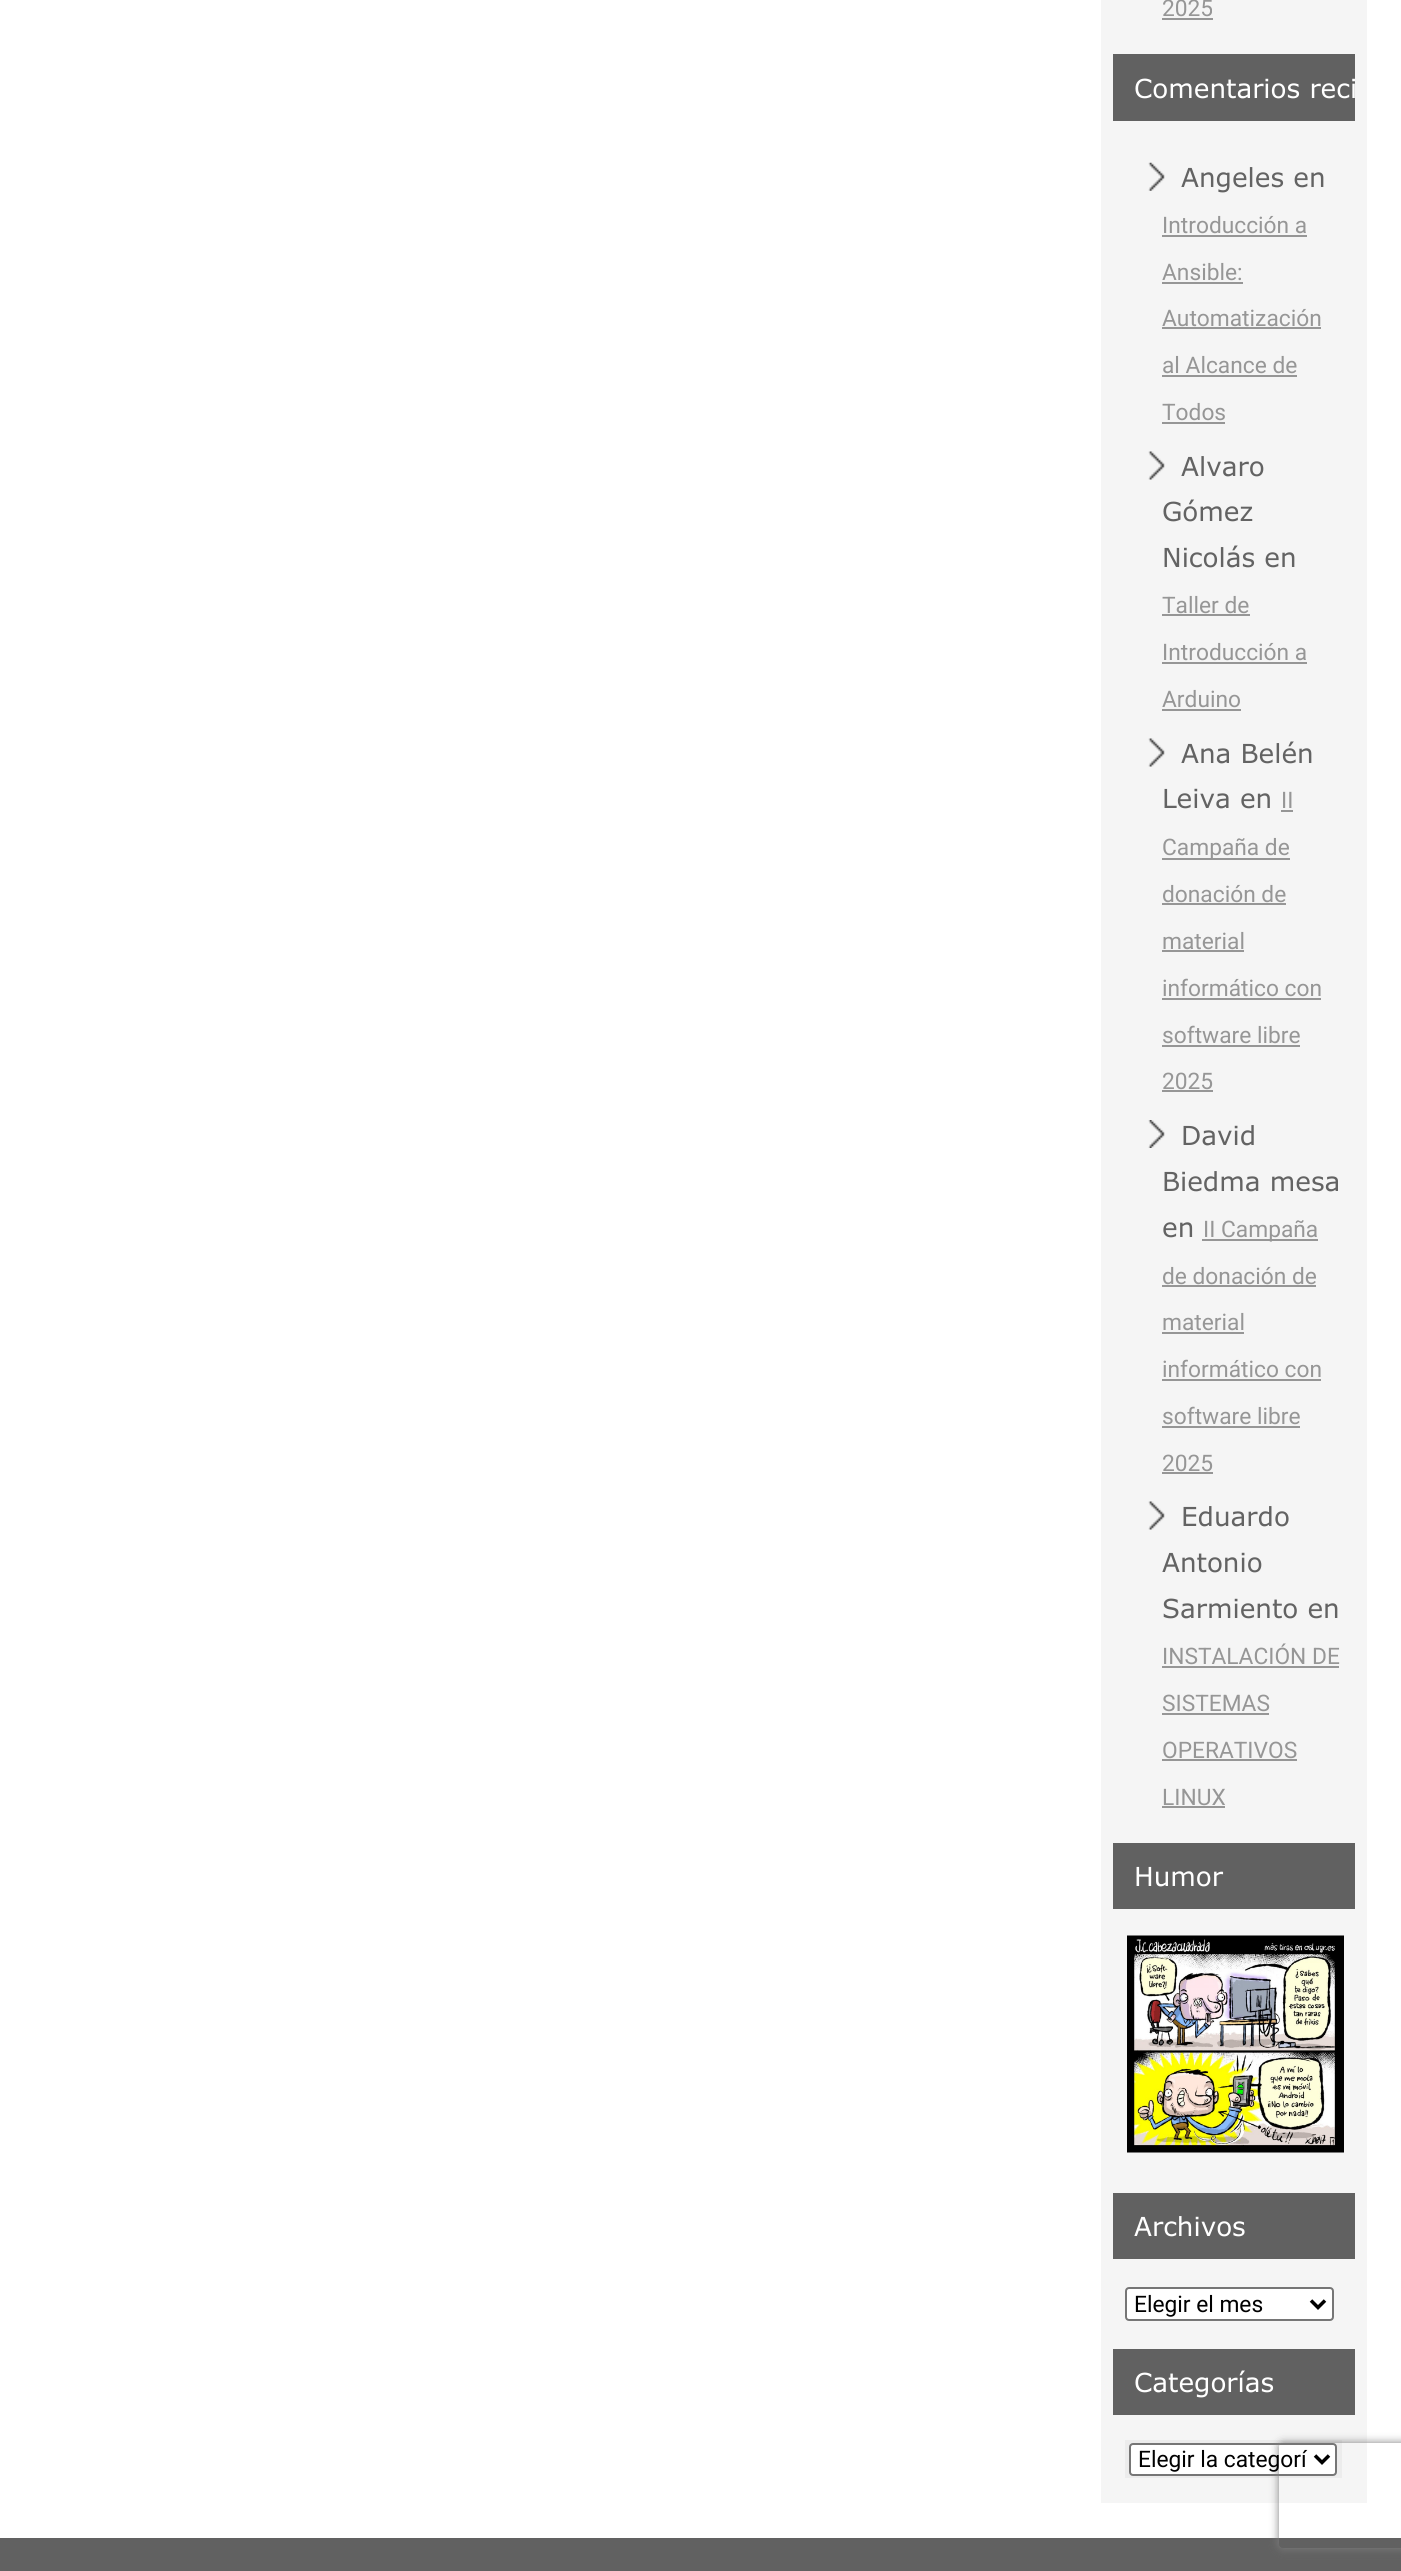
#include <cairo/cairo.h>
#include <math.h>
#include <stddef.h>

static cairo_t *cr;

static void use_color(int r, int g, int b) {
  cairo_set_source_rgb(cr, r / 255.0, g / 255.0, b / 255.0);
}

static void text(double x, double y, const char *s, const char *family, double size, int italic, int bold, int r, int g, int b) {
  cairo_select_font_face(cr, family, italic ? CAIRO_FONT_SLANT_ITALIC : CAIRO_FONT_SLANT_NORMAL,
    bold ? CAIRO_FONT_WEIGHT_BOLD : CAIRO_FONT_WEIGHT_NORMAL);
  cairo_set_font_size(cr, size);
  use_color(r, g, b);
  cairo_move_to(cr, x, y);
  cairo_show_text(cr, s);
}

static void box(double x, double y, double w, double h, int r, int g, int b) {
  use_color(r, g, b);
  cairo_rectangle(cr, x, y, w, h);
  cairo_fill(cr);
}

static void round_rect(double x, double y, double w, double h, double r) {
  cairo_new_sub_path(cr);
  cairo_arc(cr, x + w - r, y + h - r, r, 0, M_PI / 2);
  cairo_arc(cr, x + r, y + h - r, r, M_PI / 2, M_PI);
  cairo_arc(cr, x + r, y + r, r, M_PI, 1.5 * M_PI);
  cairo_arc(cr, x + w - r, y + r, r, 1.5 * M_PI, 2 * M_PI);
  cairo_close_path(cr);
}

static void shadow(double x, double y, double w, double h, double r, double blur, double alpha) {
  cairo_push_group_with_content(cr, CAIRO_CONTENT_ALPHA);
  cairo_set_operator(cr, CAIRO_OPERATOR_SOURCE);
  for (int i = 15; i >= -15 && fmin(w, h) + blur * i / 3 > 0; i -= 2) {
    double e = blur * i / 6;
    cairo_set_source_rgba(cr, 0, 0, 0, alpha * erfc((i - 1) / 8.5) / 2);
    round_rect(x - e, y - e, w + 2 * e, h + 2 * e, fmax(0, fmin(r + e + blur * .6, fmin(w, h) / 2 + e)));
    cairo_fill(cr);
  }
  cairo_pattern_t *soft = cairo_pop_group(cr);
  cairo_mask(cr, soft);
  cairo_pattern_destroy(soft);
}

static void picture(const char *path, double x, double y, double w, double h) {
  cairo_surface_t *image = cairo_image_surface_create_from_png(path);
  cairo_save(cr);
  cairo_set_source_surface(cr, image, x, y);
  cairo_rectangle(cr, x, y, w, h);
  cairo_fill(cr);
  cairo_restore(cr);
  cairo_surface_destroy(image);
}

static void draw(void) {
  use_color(255, 255, 255);
  cairo_paint(cr);
  box(1101, 0, 266, 2503, 245, 245, 245);
  box(1162, 18, 51, 2, 150, 150, 150);
  box(1113, 54, 242, 67, 97, 97, 97);
  picture("img_01.png", 1148, 162, 17, 29);
  box(1162, 235, 145, 2, 150, 150, 150);
  box(1162, 282, 81, 2, 150, 150, 150);
  box(1162, 327, 159, 2, 150, 150, 150);
  box(1162, 375, 135, 2, 150, 150, 150);
  box(1162, 422, 63, 2, 150, 150, 150);
  picture("img_02.png", 1148, 451, 17, 29);
  box(1162, 614, 88, 2, 150, 150, 150);
  box(1162, 662, 145, 2, 150, 150, 150);
  box(1162, 709, 79, 2, 150, 150, 150);
  picture("img_02.png", 1148, 738, 17, 29);
  box(1281, 810, 12, 2, 150, 150, 150);
  box(1162, 858, 128, 2, 150, 150, 150);
  box(1162, 903, 124, 2, 150, 150, 150);
  box(1162, 950, 82, 2, 150, 150, 150);
  box(1162, 998, 159, 2, 150, 150, 150);
  box(1162, 1045, 138, 2, 150, 150, 150);
  box(1162, 1090, 51, 2, 150, 150, 150);
  picture("img_03.png", 1148, 1120, 17, 28);
  box(1202, 1239, 116, 2, 150, 150, 150);
  box(1162, 1285, 154, 2, 150, 150, 150);
  box(1162, 1332, 82, 2, 150, 150, 150);
  box(1162, 1379, 159, 2, 150, 150, 150);
  box(1162, 1426, 138, 2, 150, 150, 150);
  box(1162, 1472, 51, 2, 150, 150, 150);
  picture("img_02.png", 1148, 1501, 17, 29);
  box(1162, 1666, 177, 2, 150, 150, 150);
  box(1162, 1713, 107, 2, 150, 150, 150);
  box(1162, 1759, 135, 2, 150, 150, 150);
  box(1162, 1806, 63, 2, 150, 150, 150);
  box(1113, 1843, 242, 66, 97, 97, 97);
  picture("img_04.png", 1127, 1935, 217, 218);
  box(1113, 2193, 242, 66, 97, 97, 97);
  use_color(255, 255, 255);
  round_rect(1126, 2288, 207, 32, 3);
  cairo_fill_preserve(cr);
  use_color(118, 118, 118);
  cairo_stroke(cr);
  cairo_new_path(cr);
  cairo_move_to(cr, 1311, 2300.5);
  cairo_line_to(cr, 1318, 2307.5);
  cairo_line_to(cr, 1325, 2300.5);
  use_color(0, 0, 0);
  cairo_set_line_width(cr, 3.5);
  cairo_stroke(cr);
  box(1113, 2349, 242, 66, 97, 97, 97);
  box(1125, 2440, 217, 38, 236, 236, 236);
  use_color(255, 255, 255);
  round_rect(1130, 2444, 206, 31, 3);
  cairo_fill_preserve(cr);
  use_color(118, 118, 118);
  cairo_set_line_width(cr, 2);
  cairo_stroke(cr);
  cairo_new_path(cr);
  cairo_move_to(cr, 1315, 2455.5);
  cairo_line_to(cr, 1322, 2462.5);
  cairo_line_to(cr, 1329, 2455.5);
  use_color(0, 0, 0);
  cairo_set_line_width(cr, 3.5);
  cairo_stroke(cr);
  box(0, 2538, 1401, 33, 97, 97, 97);
  cairo_save(cr);
  cairo_set_fill_rule(cr, CAIRO_FILL_RULE_EVEN_ODD);
  cairo_new_path(cr);
  cairo_move_to(cr, 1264, 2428);
  cairo_line_to(cr, 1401, 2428);
  cairo_line_to(cr, 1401, 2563);
  cairo_line_to(cr, 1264, 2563);
  cairo_close_path(cr);
  cairo_move_to(cr, 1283, 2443);
  cairo_line_to(cr, 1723, 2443);
  cairo_curve_to(cr, 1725, 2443, 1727, 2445, 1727, 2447);
  cairo_line_to(cr, 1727, 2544);
  cairo_curve_to(cr, 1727, 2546, 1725, 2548, 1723, 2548);
  cairo_line_to(cr, 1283, 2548);
  cairo_curve_to(cr, 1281, 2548, 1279, 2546, 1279, 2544);
  cairo_line_to(cr, 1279, 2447);
  cairo_curve_to(cr, 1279, 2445, 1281, 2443, 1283, 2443);
  cairo_close_path(cr);
  cairo_clip(cr);
  use_color(128, 128, 128);
  shadow(1279, 2443, 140, 105, 4, 4.5, 1);
  cairo_restore(cr);
  text(1162, 16, "2025", "Roboto", 22.75, 0, 0, 150, 150, 150);
  text(1134, 98, "Comentarios reci", "Verdana", 26.25, 0, 0, 255, 255, 255);
  text(1181, 187, "Angeles en", "Verdana", 26.25, 0, 0, 99, 99, 99);
  text(1162, 233, "Introducción a", "Roboto", 22.75, 0, 0, 150, 150, 150);
  text(1162, 280, "Ansible:", "Roboto", 22.75, 0, 0, 150, 150, 150);
  text(1162, 326, "Automatización", "Roboto", 22.75, 0, 0, 150, 150, 150);
  text(1162, 373, "al Alcance de", "Roboto", 22.75, 0, 0, 150, 150, 150);
  text(1162, 420, "Todos", "Roboto", 22.75, 0, 0, 150, 150, 150);
  text(1181, 476, "Alvaro", "Verdana", 26.25, 0, 0, 99, 99, 99);
  text(1162, 521, "Gómez", "Verdana", 26.25, 0, 0, 99, 99, 99);
  text(1162, 567, "Nicolás en", "Verdana", 26.25, 0, 0, 99, 99, 99);
  text(1162, 613, "Taller de", "Roboto", 22.75, 0, 0, 150, 150, 150);
  text(1162, 660, "Introducción a", "Roboto", 22.75, 0, 0, 150, 150, 150);
  text(1162, 707, "Arduino", "Roboto", 22.75, 0, 0, 150, 150, 150);
  text(1181, 763, "Ana Belén", "Verdana", 26.25, 0, 0, 99, 99, 99);
  text(1162, 808, "Leiva en", "Verdana", 26.25, 0, 0, 99, 99, 99);
  text(1281, 808, "II", "Roboto", 22.75, 0, 0, 150, 150, 150);
  text(1162, 855, "Campaña de", "Roboto", 22.75, 0, 0, 150, 150, 150);
  text(1162, 902, "donación de", "Roboto", 22.75, 0, 0, 150, 150, 150);
  text(1162, 949, "material", "Roboto", 22.75, 0, 0, 150, 150, 150);
  text(1162, 996, "informático con", "Roboto", 22.75, 0, 0, 150, 150, 150);
  text(1162, 1043, "software libre", "Roboto", 22.75, 0, 0, 150, 150, 150);
  text(1162, 1089, "2025", "Roboto", 22.75, 0, 0, 150, 150, 150);
  text(1181, 1145, "David", "Verdana", 26.25, 0, 0, 99, 99, 99);
  text(1162, 1191, "Biedma mesa", "Verdana", 26.25, 0, 0, 99, 99, 99);
  text(1162, 1237, "en", "Verdana", 26.25, 0, 0, 99, 99, 99);
  text(1203, 1237, "II Campaña", "Roboto", 22.75, 0, 0, 150, 150, 150);
  text(1162, 1284, "de donación de", "Roboto", 22.75, 0, 0, 150, 150, 150);
  text(1162, 1330, "material", "Roboto", 22.75, 0, 0, 150, 150, 150);
  text(1162, 1377, "informático con", "Roboto", 22.75, 0, 0, 150, 150, 150);
  text(1162, 1424, "software libre", "Roboto", 22.75, 0, 0, 150, 150, 150);
  text(1162, 1471, "2025", "Roboto", 22.75, 0, 0, 150, 150, 150);
  text(1181, 1526, "Eduardo", "Verdana", 26.25, 0, 0, 99, 99, 99);
  text(1162, 1572, "Antonio", "Verdana", 26.25, 0, 0, 99, 99, 99);
  text(1162, 1618, "Sarmiento en", "Verdana", 26.25, 0, 0, 99, 99, 99);
  text(1162, 1664, "INSTALACIÓN DE", "Roboto", 22.75, 0, 0, 150, 150, 150);
  text(1162, 1711, "SISTEMAS", "Roboto", 22.75, 0, 0, 150, 150, 150);
  text(1162, 1758, "OPERATIVOS", "Roboto", 22.75, 0, 0, 150, 150, 150);
  text(1162, 1805, "LINUX", "Roboto", 22.75, 0, 0, 150, 150, 150);
  text(1134, 1886, "Humor", "Verdana", 26.25, 0, 0, 255, 255, 255);
  text(1134, 2236, "Archivos", "Verdana", 26.25, 0, 0, 255, 255, 255);
  text(1134, 2312, "Elegir el mes", "Roboto", 22.75, 0, 0, 0, 0, 0);
  text(1134, 2392, "Categorías", "Verdana", 26.25, 0, 0, 255, 255, 255);
  text(1138, 2467, "Elegir la categorí", "Roboto", 22.75, 0, 0, 0, 0, 0);
}

int main(void) {
  cairo_surface_t *surface = cairo_image_surface_create(CAIRO_FORMAT_RGB24, 1401, 2571);
  cr = cairo_create(surface);
  cairo_font_options_t *options = cairo_font_options_create();
  cairo_font_options_set_hint_metrics(options, CAIRO_HINT_METRICS_OFF);
  cairo_font_options_set_hint_style(options, CAIRO_HINT_STYLE_NONE);
  cairo_set_font_options(cr, options);
  cairo_set_miter_limit(cr, 4);
  draw();
  cairo_surface_write_to_png(surface, "out.png");
  cairo_font_options_destroy(options);
  cairo_destroy(cr);
  cairo_surface_destroy(surface);
  return 0;
}
